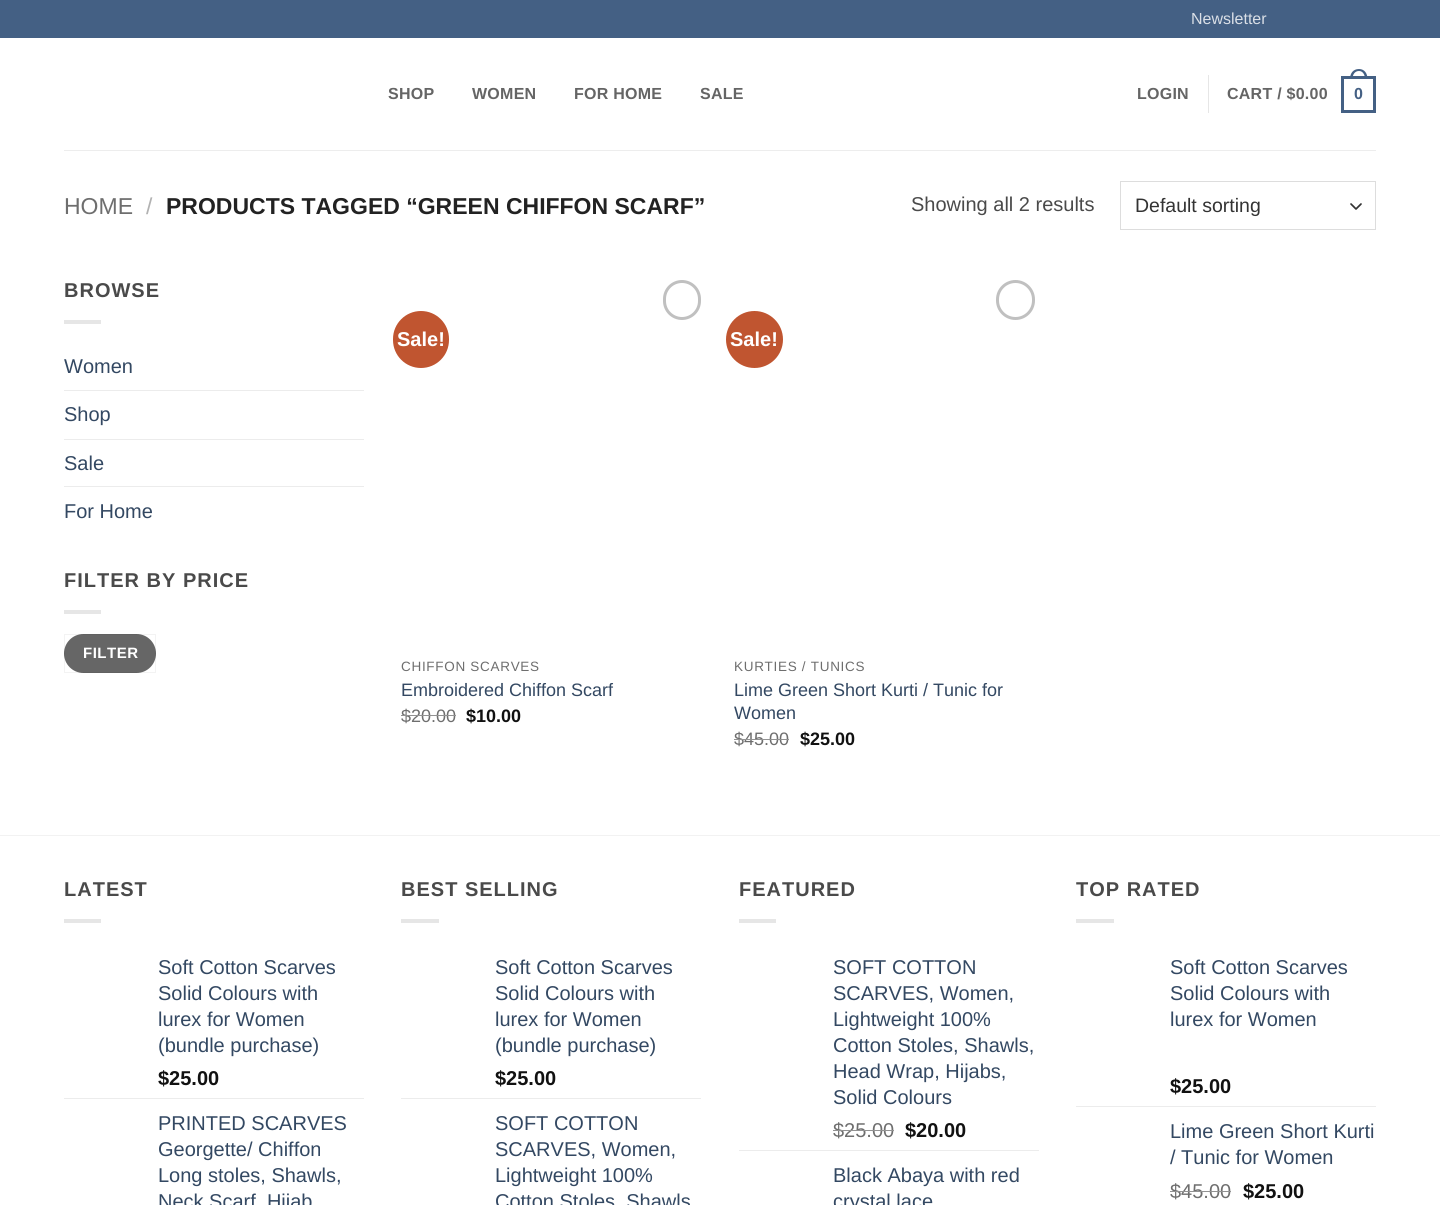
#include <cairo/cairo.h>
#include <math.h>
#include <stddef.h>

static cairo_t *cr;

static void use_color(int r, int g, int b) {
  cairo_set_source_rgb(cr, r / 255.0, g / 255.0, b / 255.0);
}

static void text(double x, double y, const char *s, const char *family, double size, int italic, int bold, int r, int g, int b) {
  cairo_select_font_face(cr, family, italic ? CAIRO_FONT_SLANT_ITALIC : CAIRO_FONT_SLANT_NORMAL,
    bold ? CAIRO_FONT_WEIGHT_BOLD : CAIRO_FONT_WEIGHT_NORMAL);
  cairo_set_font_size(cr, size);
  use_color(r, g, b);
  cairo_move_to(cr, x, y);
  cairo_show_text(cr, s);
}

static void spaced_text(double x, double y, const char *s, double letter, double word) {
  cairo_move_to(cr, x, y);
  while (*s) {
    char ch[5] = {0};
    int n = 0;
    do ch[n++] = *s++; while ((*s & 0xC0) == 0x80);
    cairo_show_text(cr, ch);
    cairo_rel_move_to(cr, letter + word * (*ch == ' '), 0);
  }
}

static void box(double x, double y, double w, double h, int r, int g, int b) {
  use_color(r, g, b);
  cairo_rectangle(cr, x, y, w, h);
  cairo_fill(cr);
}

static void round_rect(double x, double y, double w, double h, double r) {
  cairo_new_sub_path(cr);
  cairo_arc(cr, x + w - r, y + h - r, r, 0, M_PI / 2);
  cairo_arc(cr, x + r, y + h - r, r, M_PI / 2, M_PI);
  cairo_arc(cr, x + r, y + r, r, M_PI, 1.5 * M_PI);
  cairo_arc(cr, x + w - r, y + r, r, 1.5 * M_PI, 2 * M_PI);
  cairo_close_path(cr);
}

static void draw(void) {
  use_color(255, 255, 255);
  cairo_paint(cr);
  box(0, 0, 1440, 38, 68, 96, 132);
  box(1208, 75, 1, 38, 230, 230, 230);
  cairo_rectangle(cr, 1342.5, 77.5, 32, 34);
  use_color(68, 96, 132);
  cairo_set_line_width(cr, 3);
  cairo_stroke(cr);
  cairo_set_fill_rule(cr, CAIRO_FILL_RULE_EVEN_ODD);
  cairo_new_path(cr);
  cairo_move_to(cr, 1359, 69);
  cairo_curve_to(cr, 1364.5, 69, 1367.5, 73.5, 1367.5, 79);
  cairo_line_to(cr, 1350, 79);
  cairo_curve_to(cr, 1350, 73.5, 1353, 69, 1359, 69);
  cairo_close_path(cr);
  cairo_move_to(cr, 1359, 71);
  cairo_curve_to(cr, 1363, 71, 1365, 75, 1365, 79);
  cairo_line_to(cr, 1352.5, 79);
  cairo_curve_to(cr, 1352.5, 75, 1354.5, 71, 1359, 71);
  cairo_close_path(cr);
  cairo_fill(cr);
  box(64, 150, 1312, 1, 237, 237, 237);
  cairo_new_path(cr);
  cairo_move_to(cr, 1351, 204);
  cairo_line_to(cr, 1356, 209);
  cairo_line_to(cr, 1361, 204);
  use_color(51, 51, 51);
  cairo_set_line_width(cr, 1.7);
  cairo_set_line_cap(cr, CAIRO_LINE_CAP_ROUND);
  cairo_set_line_join(cr, CAIRO_LINE_JOIN_ROUND);
  cairo_stroke(cr);
  cairo_rectangle(cr, 1120.5, 181.5, 255, 48);
  use_color(221, 221, 221);
  cairo_set_line_width(cr, 1);
  cairo_set_line_cap(cr, CAIRO_LINE_CAP_BUTT);
  cairo_set_line_join(cr, CAIRO_LINE_JOIN_MITER);
  cairo_stroke(cr);
  box(64, 320, 37, 4, 230, 230, 230);
  box(64, 390, 300, 1, 236, 236, 236);
  box(64, 439, 300, 1, 236, 236, 236);
  box(64, 486, 300, 1, 236, 236, 236);
  box(64, 610, 37, 4, 230, 230, 230);
  use_color(102, 102, 102);
  round_rect(64, 634, 92, 39, 19.5);
  cairo_fill(cr);
  cairo_rectangle(cr, 64.5, 634.5, 91, 38);
  cairo_set_source_rgba(cr, 0, 0, 0, 0.05);
  cairo_stroke(cr);
  use_color(192, 85, 48);
  round_rect(393, 311, 56, 57, 28);
  cairo_fill(cr);
  round_rect(664.5, 281.5, 35, 37, 17.5);
  use_color(192, 192, 192);
  cairo_set_line_width(cr, 3);
  cairo_stroke(cr);
  use_color(192, 85, 48);
  cairo_arc(cr, 754.5, 339.5, 28.5, 0, 2 * M_PI);
  cairo_fill(cr);
  round_rect(997.5, 281.5, 36, 37, 18);
  use_color(192, 192, 192);
  cairo_stroke(cr);
  box(0, 835, 1440, 1, 242, 242, 242);
  box(64, 919, 37, 4, 230, 230, 230);
  box(64, 1098, 300, 1, 236, 236, 236);
  box(401, 919, 38, 4, 230, 230, 230);
  box(401, 1098, 300, 1, 236, 236, 236);
  box(739, 919, 37, 4, 230, 230, 230);
  box(739, 1150, 300, 1, 236, 236, 236);
  box(1076, 919, 38, 4, 230, 230, 230);
  box(1076, 1106, 300, 1, 236, 236, 236);
  text(1191, 24, "Newsletter", "Liberation Sans", 16, 0, 0, 218, 223, 230);
  cairo_select_font_face(cr, "Liberation Sans", CAIRO_FONT_SLANT_NORMAL, CAIRO_FONT_WEIGHT_BOLD);
  use_color(101, 101, 101);
  spaced_text(388, 99, "SHOP", 0.25, 0);
  spaced_text(472, 99, "WOMEN", 0.25, 0);
  spaced_text(574, 99, "FOR HOME", 0.25, 0);
  spaced_text(700, 99, "SALE", 0.25, 0);
  spaced_text(1137, 99, "LOGIN", 0.25, 0);
  spaced_text(1227, 99, "CART / $0.00", 0.25, 0);
  use_color(68, 96, 132);
  spaced_text(1354, 99, "0", 0.25, 0);
  text(64, 214, "HOME", "Liberation Sans", 23, 0, 0, 110, 110, 110);
  text(146, 214, "/", "Liberation Sans", 23, 0, 0, 178, 178, 178);
  text(166, 214, "PRODUCTS TAGGED “GREEN CHIFFON SCARF”", "Liberation Sans", 23, 0, 1, 34, 34, 34);
  text(911, 211, "Showing all 2 results", "Liberation Sans", 20, 0, 0, 74, 74, 74);
  text(1135, 212, "Default sorting", "Liberation Sans", 19.5, 0, 0, 51, 51, 51);
  cairo_select_font_face(cr, "Liberation Sans", CAIRO_FONT_SLANT_NORMAL, CAIRO_FONT_WEIGHT_BOLD);
  cairo_set_font_size(cr, 20);
  use_color(74, 74, 74);
  spaced_text(64, 297, "BROWSE", 1, 0);
  text(64, 373, "Women", "Liberation Sans", 20, 0, 0, 51, 72, 98);
  text(64, 421, "Shop", "Liberation Sans", 20, 0, 0, 51, 72, 98);
  text(64, 470, "Sale", "Liberation Sans", 20, 0, 0, 51, 72, 98);
  text(64, 518, "For Home", "Liberation Sans", 20, 0, 0, 51, 72, 98);
  cairo_select_font_face(cr, "Liberation Sans", CAIRO_FONT_SLANT_NORMAL, CAIRO_FONT_WEIGHT_BOLD);
  use_color(74, 74, 74);
  spaced_text(64, 587, "FILTER BY PRICE", 1, 0);
  cairo_set_font_size(cr, 15);
  use_color(255, 255, 255);
  spaced_text(83, 658, "FILTER", 0.5, 0);
  text(397, 346, "Sale!", "Liberation Sans", 20, 0, 1, 255, 255, 255);
  cairo_select_font_face(cr, "Liberation Sans", CAIRO_FONT_SLANT_NORMAL, CAIRO_FONT_WEIGHT_NORMAL);
  cairo_set_font_size(cr, 13.5);
  use_color(110, 110, 110);
  spaced_text(401, 671, "CHIFFON SCARVES", 0.7, 0);
  text(401, 696, "Embroidered Chiffon Scarf", "Liberation Sans", 18, 0, 0, 51, 72, 98);
  text(401, 722, "$20.00", "Liberation Sans", 18, 0, 0, 110, 110, 110);
  box(401, 715, 55, 1, 146, 146, 146);
  text(466, 722, "$10.00", "Liberation Sans", 18, 0, 1, 17, 17, 17);
  text(730, 346, "Sale!", "Liberation Sans", 20, 0, 1, 255, 255, 255);
  cairo_select_font_face(cr, "Liberation Sans", CAIRO_FONT_SLANT_NORMAL, CAIRO_FONT_WEIGHT_NORMAL);
  cairo_set_font_size(cr, 13.5);
  use_color(110, 110, 110);
  spaced_text(734, 671, "KURTIES / TUNICS", 0.7, 0);
  text(734, 696, "Lime Green Short Kurti / Tunic for", "Liberation Sans", 18, 0, 0, 51, 72, 98);
  text(734, 719, "Women", "Liberation Sans", 18, 0, 0, 51, 72, 98);
  text(734, 745, "$45.00", "Liberation Sans", 18, 0, 0, 110, 110, 110);
  box(734, 739, 55, 1, 146, 146, 146);
  text(800, 745, "$25.00", "Liberation Sans", 18, 0, 1, 17, 17, 17);
  cairo_set_font_size(cr, 20);
  use_color(74, 74, 74);
  spaced_text(64, 896, "LATEST", 1, 0);
  text(158, 974, "Soft Cotton Scarves", "Liberation Sans", 20, 0, 0, 51, 72, 98);
  text(158, 1000, "Solid Colours with", "Liberation Sans", 20, 0, 0, 51, 72, 98);
  text(158, 1026, "lurex for Women", "Liberation Sans", 20, 0, 0, 51, 72, 98);
  text(158, 1052, "(bundle purchase)", "Liberation Sans", 20, 0, 0, 51, 72, 98);
  text(158, 1085, "$25.00", "Liberation Sans", 20, 0, 1, 17, 17, 17);
  text(158, 1130, "PRINTED SCARVES", "Liberation Sans", 20, 0, 0, 51, 72, 98);
  text(158, 1156, "Georgette/ Chiffon", "Liberation Sans", 20, 0, 0, 51, 72, 98);
  text(158, 1182, "Long stoles, Shawls,", "Liberation Sans", 20, 0, 0, 51, 72, 98);
  text(158, 1208, "Neck Scarf, Hijab", "Liberation Sans", 20, 0, 0, 51, 72, 98);
  cairo_select_font_face(cr, "Liberation Sans", CAIRO_FONT_SLANT_NORMAL, CAIRO_FONT_WEIGHT_BOLD);
  use_color(74, 74, 74);
  spaced_text(401, 896, "BEST SELLING", 1, 0);
  text(495, 974, "Soft Cotton Scarves", "Liberation Sans", 20, 0, 0, 51, 72, 98);
  text(495, 1000, "Solid Colours with", "Liberation Sans", 20, 0, 0, 51, 72, 98);
  text(495, 1026, "lurex for Women", "Liberation Sans", 20, 0, 0, 51, 72, 98);
  text(495, 1052, "(bundle purchase)", "Liberation Sans", 20, 0, 0, 51, 72, 98);
  text(495, 1085, "$25.00", "Liberation Sans", 20, 0, 1, 17, 17, 17);
  text(495, 1130, "SOFT COTTON", "Liberation Sans", 20, 0, 0, 51, 72, 98);
  text(495, 1156, "SCARVES, Women,", "Liberation Sans", 20, 0, 0, 51, 72, 98);
  text(495, 1182, "Lightweight 100%", "Liberation Sans", 20, 0, 0, 51, 72, 98);
  text(495, 1208, "Cotton Stoles, Shawls", "Liberation Sans", 20, 0, 0, 51, 72, 98);
  cairo_select_font_face(cr, "Liberation Sans", CAIRO_FONT_SLANT_NORMAL, CAIRO_FONT_WEIGHT_BOLD);
  use_color(74, 74, 74);
  spaced_text(739, 896, "FEATURED", 1, 0);
  text(833, 974, "SOFT COTTON", "Liberation Sans", 20, 0, 0, 51, 72, 98);
  text(833, 1000, "SCARVES, Women,", "Liberation Sans", 20, 0, 0, 51, 72, 98);
  text(833, 1026, "Lightweight 100%", "Liberation Sans", 20, 0, 0, 51, 72, 98);
  text(833, 1052, "Cotton Stoles, Shawls,", "Liberation Sans", 20, 0, 0, 51, 72, 98);
  text(833, 1078, "Head Wrap, Hijabs,", "Liberation Sans", 20, 0, 0, 51, 72, 98);
  text(833, 1104, "Solid Colours", "Liberation Sans", 20, 0, 0, 51, 72, 98);
  text(833, 1137, "$25.00", "Liberation Sans", 20, 0, 0, 110, 110, 110);
  box(833, 1130, 61, 1, 146, 146, 146);
  text(905, 1137, "$20.00", "Liberation Sans", 20, 0, 1, 17, 17, 17);
  text(833, 1182, "Black Abaya with red", "Liberation Sans", 20, 0, 0, 51, 72, 98);
  text(833, 1208, "crystal lace", "Liberation Sans", 20, 0, 0, 51, 72, 98);
  cairo_select_font_face(cr, "Liberation Sans", CAIRO_FONT_SLANT_NORMAL, CAIRO_FONT_WEIGHT_BOLD);
  use_color(74, 74, 74);
  spaced_text(1076, 896, "TOP RATED", 1, 0);
  text(1170, 974, "Soft Cotton Scarves", "Liberation Sans", 20, 0, 0, 51, 72, 98);
  text(1170, 1000, "Solid Colours with", "Liberation Sans", 20, 0, 0, 51, 72, 98);
  text(1170, 1026, "lurex for Women", "Liberation Sans", 20, 0, 0, 51, 72, 98);
  text(1170, 1093, "$25.00", "Liberation Sans", 20, 0, 1, 17, 17, 17);
  text(1170, 1138, "Lime Green Short Kurti", "Liberation Sans", 20, 0, 0, 51, 72, 98);
  text(1170, 1164, "/ Tunic for Women", "Liberation Sans", 20, 0, 0, 51, 72, 98);
  text(1170, 1198, "$45.00", "Liberation Sans", 20, 0, 0, 110, 110, 110);
  box(1170, 1191, 61, 1, 146, 146, 146);
  text(1243, 1198, "$25.00", "Liberation Sans", 20, 0, 1, 17, 17, 17);
}

int main(void) {
  cairo_surface_t *surface = cairo_image_surface_create(CAIRO_FORMAT_RGB24, 1440, 1205);
  cr = cairo_create(surface);
  cairo_font_options_t *options = cairo_font_options_create();
  cairo_font_options_set_hint_metrics(options, CAIRO_HINT_METRICS_OFF);
  cairo_font_options_set_hint_style(options, CAIRO_HINT_STYLE_NONE);
  cairo_set_font_options(cr, options);
  cairo_set_miter_limit(cr, 4);
  draw();
  cairo_surface_write_to_png(surface, "out.png");
  cairo_font_options_destroy(options);
  cairo_destroy(cr);
  cairo_surface_destroy(surface);
  return 0;
}
